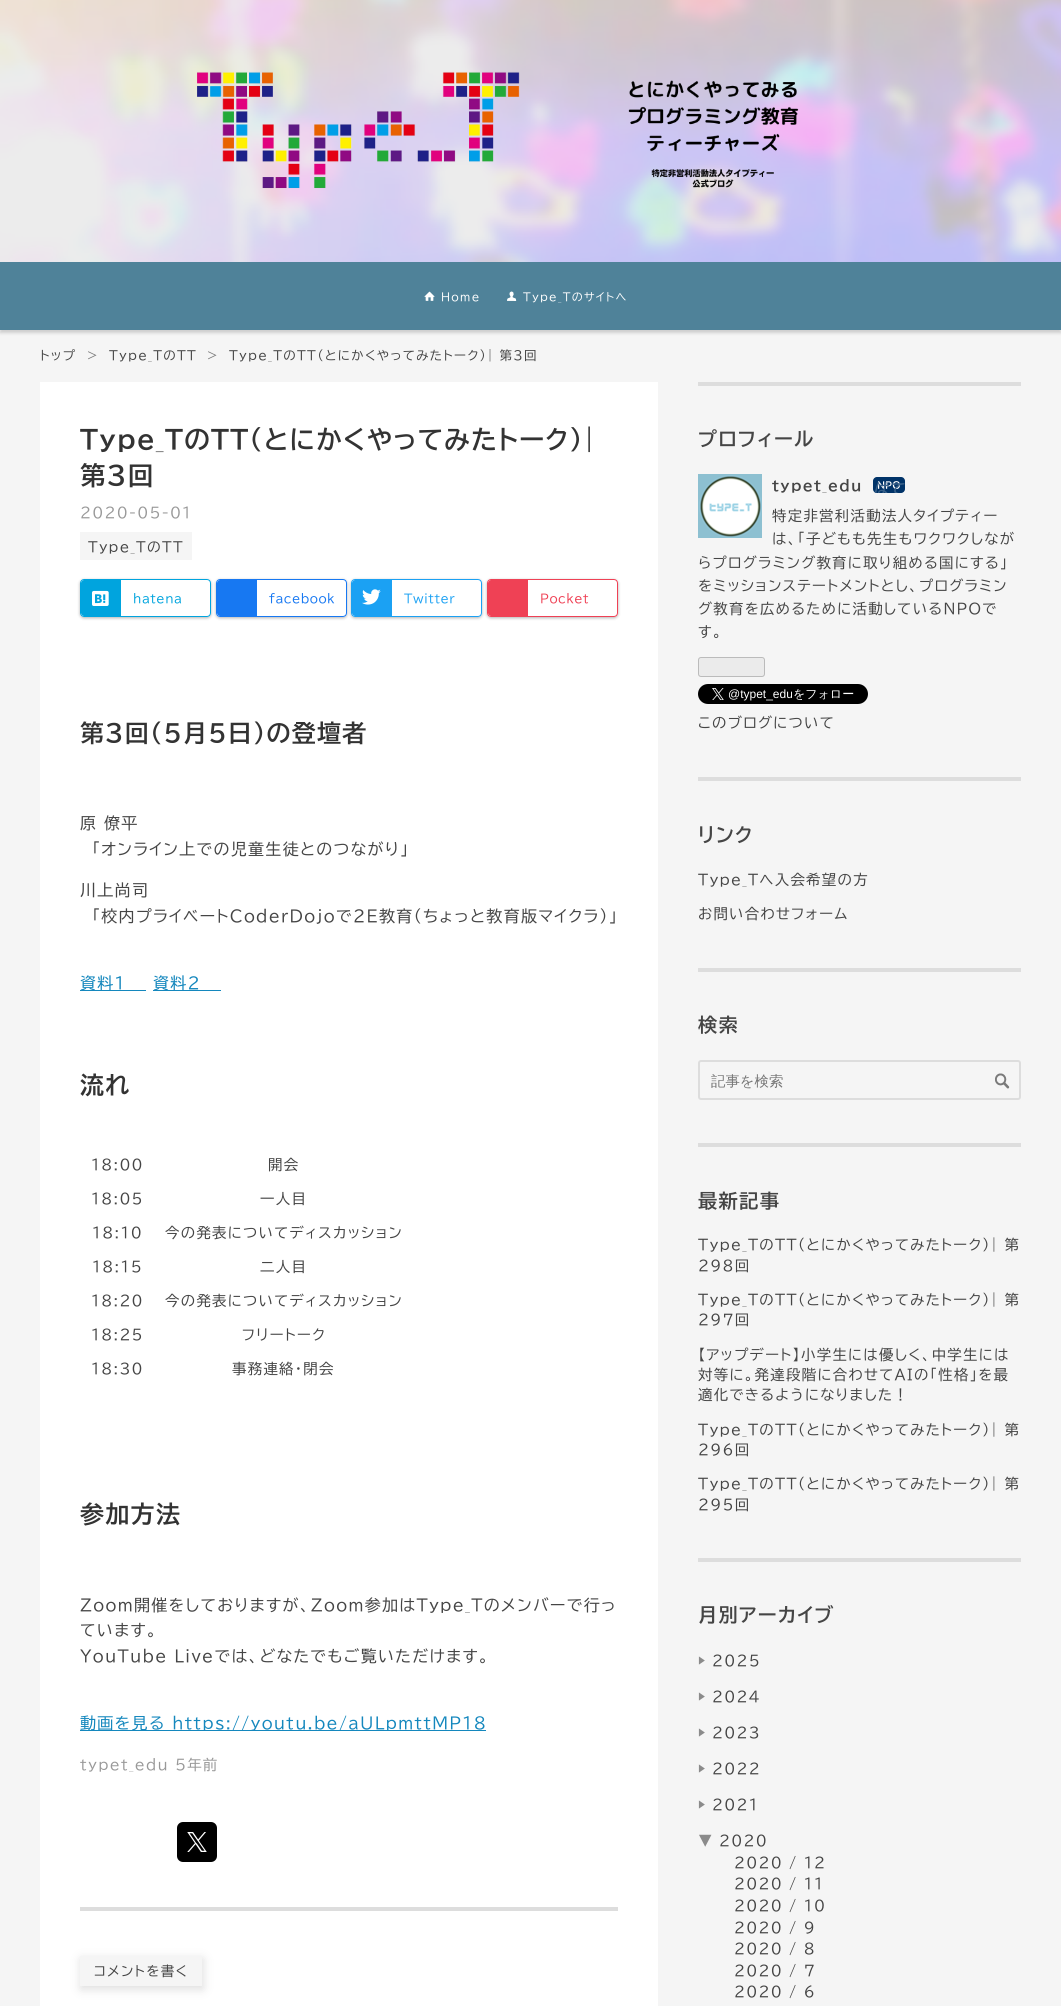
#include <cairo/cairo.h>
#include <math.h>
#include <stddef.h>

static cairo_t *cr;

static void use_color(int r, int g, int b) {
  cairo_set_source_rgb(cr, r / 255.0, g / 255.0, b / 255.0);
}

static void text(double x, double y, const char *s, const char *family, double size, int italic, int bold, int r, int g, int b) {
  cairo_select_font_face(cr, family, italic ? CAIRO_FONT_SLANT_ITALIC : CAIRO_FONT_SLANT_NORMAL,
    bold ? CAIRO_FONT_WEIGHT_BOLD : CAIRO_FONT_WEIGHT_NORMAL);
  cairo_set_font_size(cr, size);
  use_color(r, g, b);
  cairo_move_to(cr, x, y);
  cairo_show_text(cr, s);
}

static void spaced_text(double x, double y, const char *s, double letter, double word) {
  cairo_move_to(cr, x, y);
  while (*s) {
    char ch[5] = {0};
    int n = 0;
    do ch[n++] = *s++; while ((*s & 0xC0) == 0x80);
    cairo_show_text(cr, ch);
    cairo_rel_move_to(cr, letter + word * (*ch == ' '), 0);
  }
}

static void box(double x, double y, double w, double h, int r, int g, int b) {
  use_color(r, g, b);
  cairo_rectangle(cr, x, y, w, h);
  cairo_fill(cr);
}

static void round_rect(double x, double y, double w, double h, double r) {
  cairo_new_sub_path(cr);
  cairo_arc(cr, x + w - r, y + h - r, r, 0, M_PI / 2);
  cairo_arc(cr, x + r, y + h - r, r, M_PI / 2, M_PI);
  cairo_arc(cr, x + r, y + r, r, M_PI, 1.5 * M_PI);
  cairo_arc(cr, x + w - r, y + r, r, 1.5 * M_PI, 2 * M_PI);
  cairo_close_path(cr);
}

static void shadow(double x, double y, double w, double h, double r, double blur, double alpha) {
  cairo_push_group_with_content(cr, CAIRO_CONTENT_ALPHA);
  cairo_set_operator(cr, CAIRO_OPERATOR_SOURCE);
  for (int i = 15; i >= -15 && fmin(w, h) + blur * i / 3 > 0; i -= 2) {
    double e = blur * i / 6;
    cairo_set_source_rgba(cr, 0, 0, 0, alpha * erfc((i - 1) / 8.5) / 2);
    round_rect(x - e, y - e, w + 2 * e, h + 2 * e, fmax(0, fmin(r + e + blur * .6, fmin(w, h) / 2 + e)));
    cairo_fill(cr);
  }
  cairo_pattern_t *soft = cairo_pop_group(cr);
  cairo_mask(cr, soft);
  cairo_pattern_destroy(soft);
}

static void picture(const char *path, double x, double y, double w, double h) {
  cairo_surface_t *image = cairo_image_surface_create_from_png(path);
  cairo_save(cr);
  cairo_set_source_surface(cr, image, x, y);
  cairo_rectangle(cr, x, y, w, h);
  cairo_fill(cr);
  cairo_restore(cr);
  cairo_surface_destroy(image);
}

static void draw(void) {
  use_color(245, 245, 245);
  cairo_paint(cr);
  picture("img_01.png", 0, 0, 1061, 262);
  use_color(0, 0, 0);
  shadow(0, 265, 1061, 68, 0, 1.5, 0.16);
  box(0, 262, 1061, 68, 79, 130, 153);
  picture("img_02.png", 424, 291, 11, 10);
  picture("img_03.png", 507, 291, 10, 10);
  box(40, 382, 618, 1624, 255, 255, 255);
  box(80, 532, 112, 28, 245, 245, 245);
  cairo_save(cr);
  cairo_set_fill_rule(cr, CAIRO_FILL_RULE_EVEN_ODD);
  cairo_new_path(cr);
  cairo_move_to(cr, 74, 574);
  cairo_line_to(cr, 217, 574);
  cairo_line_to(cr, 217, 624);
  cairo_line_to(cr, 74, 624);
  cairo_close_path(cr);
  cairo_move_to(cr, 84, 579);
  cairo_line_to(cr, 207, 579);
  cairo_curve_to(cr, 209, 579, 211, 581, 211, 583);
  cairo_line_to(cr, 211, 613);
  cairo_curve_to(cr, 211, 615, 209, 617, 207, 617);
  cairo_line_to(cr, 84, 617);
  cairo_curve_to(cr, 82, 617, 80, 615, 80, 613);
  cairo_line_to(cr, 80, 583);
  cairo_curve_to(cr, 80, 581, 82, 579, 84, 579);
  cairo_close_path(cr);
  cairo_clip(cr);
  use_color(0, 0, 0);
  shadow(80, 580, 131, 38, 4, 1.5, 0.3);
  cairo_restore(cr);
  round_rect(80.5, 579.5, 130, 37, 3.5);
  use_color(0, 164, 222);
  cairo_set_line_width(cr, 1);
  cairo_stroke(cr);
  cairo_new_path(cr);
  cairo_move_to(cr, 84, 580);
  cairo_line_to(cr, 121, 580);
  cairo_line_to(cr, 121, 616);
  cairo_line_to(cr, 84, 616);
  cairo_curve_to(cr, 82.5, 616, 81, 614.5, 81, 613);
  cairo_line_to(cr, 81, 583);
  cairo_curve_to(cr, 81, 581.5, 82.5, 580, 84, 580);
  cairo_close_path(cr);
  cairo_fill(cr);
  picture("img_04.png", 92, 590, 17, 16);
  cairo_save(cr);
  cairo_set_fill_rule(cr, CAIRO_FILL_RULE_EVEN_ODD);
  cairo_new_path(cr);
  cairo_move_to(cr, 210, 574);
  cairo_line_to(cr, 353, 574);
  cairo_line_to(cr, 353, 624);
  cairo_line_to(cr, 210, 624);
  cairo_close_path(cr);
  cairo_move_to(cr, 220, 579);
  cairo_line_to(cr, 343, 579);
  cairo_curve_to(cr, 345, 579, 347, 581, 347, 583);
  cairo_line_to(cr, 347, 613);
  cairo_curve_to(cr, 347, 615, 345, 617, 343, 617);
  cairo_line_to(cr, 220, 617);
  cairo_curve_to(cr, 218, 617, 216, 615, 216, 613);
  cairo_line_to(cr, 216, 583);
  cairo_curve_to(cr, 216, 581, 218, 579, 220, 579);
  cairo_close_path(cr);
  cairo_clip(cr);
  use_color(0, 0, 0);
  shadow(216, 580, 131, 38, 4, 1.5, 0.3);
  cairo_restore(cr);
  round_rect(216.5, 579.5, 130, 37, 3.5);
  use_color(23, 120, 242);
  cairo_stroke(cr);
  cairo_new_path(cr);
  cairo_move_to(cr, 220, 580);
  cairo_line_to(cr, 257, 580);
  cairo_line_to(cr, 257, 616);
  cairo_line_to(cr, 220, 616);
  cairo_curve_to(cr, 218.5, 616, 217, 614.5, 217, 613);
  cairo_line_to(cr, 217, 583);
  cairo_curve_to(cr, 217, 581.5, 218.5, 580, 220, 580);
  cairo_close_path(cr);
  cairo_fill(cr);
  cairo_save(cr);
  cairo_set_fill_rule(cr, CAIRO_FILL_RULE_EVEN_ODD);
  cairo_new_path(cr);
  cairo_move_to(cr, 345, 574);
  cairo_line_to(cr, 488, 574);
  cairo_line_to(cr, 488, 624);
  cairo_line_to(cr, 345, 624);
  cairo_close_path(cr);
  cairo_move_to(cr, 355, 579);
  cairo_line_to(cr, 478, 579);
  cairo_curve_to(cr, 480, 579, 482, 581, 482, 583);
  cairo_line_to(cr, 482, 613);
  cairo_curve_to(cr, 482, 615, 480, 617, 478, 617);
  cairo_line_to(cr, 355, 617);
  cairo_curve_to(cr, 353, 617, 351, 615, 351, 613);
  cairo_line_to(cr, 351, 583);
  cairo_curve_to(cr, 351, 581, 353, 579, 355, 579);
  cairo_close_path(cr);
  cairo_clip(cr);
  use_color(0, 0, 0);
  shadow(351, 580, 131, 38, 4, 1.5, 0.3);
  cairo_restore(cr);
  round_rect(351.5, 579.5, 130, 37, 3.5);
  use_color(27, 161, 243);
  cairo_stroke(cr);
  cairo_new_path(cr);
  cairo_move_to(cr, 355, 580);
  cairo_line_to(cr, 392, 580);
  cairo_line_to(cr, 392, 616);
  cairo_line_to(cr, 355, 616);
  cairo_curve_to(cr, 353.5, 616, 352, 614.5, 352, 613);
  cairo_line_to(cr, 352, 583);
  cairo_curve_to(cr, 352, 581.5, 353.5, 580, 355, 580);
  cairo_close_path(cr);
  cairo_fill(cr);
  picture("img_05.png", 362, 589, 19, 16);
  cairo_save(cr);
  cairo_set_fill_rule(cr, CAIRO_FILL_RULE_EVEN_ODD);
  cairo_new_path(cr);
  cairo_move_to(cr, 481, 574);
  cairo_line_to(cr, 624, 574);
  cairo_line_to(cr, 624, 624);
  cairo_line_to(cr, 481, 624);
  cairo_close_path(cr);
  cairo_move_to(cr, 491, 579);
  cairo_line_to(cr, 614, 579);
  cairo_curve_to(cr, 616, 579, 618, 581, 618, 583);
  cairo_line_to(cr, 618, 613);
  cairo_curve_to(cr, 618, 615, 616, 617, 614, 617);
  cairo_line_to(cr, 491, 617);
  cairo_curve_to(cr, 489, 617, 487, 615, 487, 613);
  cairo_line_to(cr, 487, 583);
  cairo_curve_to(cr, 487, 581, 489, 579, 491, 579);
  cairo_close_path(cr);
  cairo_clip(cr);
  use_color(0, 0, 0);
  shadow(487, 580, 131, 38, 4, 1.5, 0.3);
  cairo_restore(cr);
  round_rect(487.5, 579.5, 130, 37, 3.5);
  use_color(239, 65, 85);
  cairo_stroke(cr);
  cairo_new_path(cr);
  cairo_move_to(cr, 491, 580);
  cairo_line_to(cr, 528, 580);
  cairo_line_to(cr, 528, 616);
  cairo_line_to(cr, 491, 616);
  cairo_curve_to(cr, 489.5, 616, 488, 614.5, 488, 613);
  cairo_line_to(cr, 488, 583);
  cairo_curve_to(cr, 488, 581.5, 489.5, 580, 491, 580);
  cairo_close_path(cr);
  cairo_fill(cr);
  box(80, 990, 66, 1, 20, 135, 189);
  box(153, 990, 68, 1, 20, 135, 189);
  box(80, 1730, 406, 1, 20, 135, 189);
  use_color(0, 0, 0);
  round_rect(177, 1822, 40, 40, 6);
  cairo_fill(cr);
  picture("img_06.png", 187, 1832, 20, 20);
  box(80, 1907, 538, 4, 221, 221, 221);
  use_color(221, 221, 221);
  shadow(81, 1959, 122, 30, 0, 5, 1);
  box(80, 1956, 122, 30, 245, 245, 245);
  box(698, 382, 323, 4, 221, 221, 221);
  picture("img_07.png", 698, 474, 64, 64);
  picture("img_08.png", 873, 477, 32, 16);
  use_color(235, 235, 235);
  round_rect(698.5, 657.5, 66, 19, 2.5);
  cairo_fill_preserve(cr);
  use_color(187, 187, 187);
  cairo_stroke(cr);
  use_color(0, 0, 0);
  round_rect(698, 684, 170, 20, 10);
  cairo_fill(cr);
  picture("img_09.png", 712, 688, 12, 12);
  box(698, 777, 323, 4, 221, 221, 221);
  box(698, 968, 323, 4, 221, 221, 221);
  round_rect(699, 1061, 321, 38, 2);
  cairo_set_line_width(cr, 2);
  cairo_stroke(cr);
  picture("img_10.png", 995, 1073, 15, 16);
  box(698, 1143, 323, 4, 221, 221, 221);
  box(698, 1558, 323, 4, 221, 221, 221);
  cairo_select_font_face(cr, "BIZ UDPGothic", CAIRO_FONT_SLANT_NORMAL, CAIRO_FONT_WEIGHT_NORMAL);
  cairo_set_font_size(cr, 11);
  use_color(255, 255, 255);
  spaced_text(441, 301, "Home", 1.3, 0);
  spaced_text(523, 301, "Type_Tのサイトへ", 1.3, 0);
  cairo_set_font_size(cr, 12.5);
  use_color(69, 69, 69);
  spaced_text(40, 360, "トップ", 1.3, 0);
  use_color(117, 117, 117);
  spaced_text(87, 360, ">", 1.3, 0);
  use_color(69, 69, 69);
  spaced_text(109, 360, "Type_TのTT", 1.3, 0);
  use_color(117, 117, 117);
  spaced_text(207, 360, ">", 1.3, 0);
  use_color(69, 69, 69);
  spaced_text(229, 360, "Type_TのTT（とにかくやってみたトーク）| 第3回", 1.3, 0);
  cairo_select_font_face(cr, "BIZ UDPGothic", CAIRO_FONT_SLANT_NORMAL, CAIRO_FONT_WEIGHT_BOLD);
  cairo_set_font_size(cr, 25.6);
  use_color(51, 51, 51);
  spaced_text(80, 449, "Type_TのTT（とにかくやってみたトーク）|", 1.3, 0);
  spaced_text(80, 485, "第3回", 1.3, 0);
  cairo_select_font_face(cr, "BIZ UDPGothic", CAIRO_FONT_SLANT_NORMAL, CAIRO_FONT_WEIGHT_NORMAL);
  cairo_set_font_size(cr, 14.4);
  use_color(153, 153, 153);
  spaced_text(80, 518, "2020-05-01", 1.3, 0);
  cairo_set_font_size(cr, 13.75);
  use_color(69, 69, 69);
  spaced_text(88, 552, "Type_TのTT", 1.3, 0);
  cairo_set_font_size(cr, 12);
  use_color(0, 164, 222);
  spaced_text(133, 603, "hatena", 0.5, 0);
  use_color(23, 120, 242);
  spaced_text(269, 603, "facebook", 0.5, 0);
  use_color(27, 161, 243);
  spaced_text(404, 603, "Twitter", 0.5, 0);
  use_color(239, 65, 85);
  spaced_text(540, 603, "Pocket", 0.5, 0);
  cairo_select_font_face(cr, "BIZ UDPGothic", CAIRO_FONT_SLANT_NORMAL, CAIRO_FONT_WEIGHT_BOLD);
  cairo_set_font_size(cr, 24);
  use_color(51, 51, 51);
  spaced_text(80, 742, "第3回（5月5日）の登壇者", 1.3, 0);
  cairo_select_font_face(cr, "BIZ UDPGothic", CAIRO_FONT_SLANT_NORMAL, CAIRO_FONT_WEIGHT_NORMAL);
  cairo_set_font_size(cr, 16);
  use_color(69, 69, 69);
  spaced_text(80, 829, "原 僚平", 1.3, 0);
  spaced_text(92, 855, "「オンライン上での児童生徒とのつながり」", 1.3, 0);
  spaced_text(80, 896, "川上尚司", 1.3, 0);
  spaced_text(92, 922, "「校内プライベートCoderDojoで２E教育（ちょっと教育版マイクラ）」", 1.3, 0);
  use_color(20, 135, 189);
  spaced_text(80, 989, "資料1", 1.3, 0);
  spaced_text(153, 989, "資料2", 1.3, 0);
  cairo_select_font_face(cr, "BIZ UDPGothic", CAIRO_FONT_SLANT_NORMAL, CAIRO_FONT_WEIGHT_BOLD);
  cairo_set_font_size(cr, 24);
  use_color(51, 51, 51);
  spaced_text(80, 1094, "流れ", 1.3, 0);
  cairo_select_font_face(cr, "BIZ UDPGothic", CAIRO_FONT_SLANT_NORMAL, CAIRO_FONT_WEIGHT_NORMAL);
  cairo_set_font_size(cr, 14.4);
  use_color(69, 69, 69);
  spaced_text(91, 1170, "18:00", 1.3, 0);
  spaced_text(268, 1170, "開会", 1.3, 0);
  spaced_text(91, 1204, "18:05", 1.3, 0);
  spaced_text(260, 1204, "一人目", 1.3, 0);
  spaced_text(92, 1238, "18:10", 1.3, 0);
  spaced_text(165, 1238, "今の発表についてディスカッション", 1.3, 0);
  spaced_text(92, 1272, "18:15", 1.3, 0);
  spaced_text(260, 1272, "二人目", 1.3, 0);
  spaced_text(91, 1306, "18:20", 1.3, 0);
  spaced_text(165, 1306, "今の発表についてディスカッション", 1.3, 0);
  spaced_text(91, 1340, "18:25", 1.3, 0);
  spaced_text(242, 1340, "フリートーク", 1.3, 0);
  spaced_text(91, 1374, "18:30", 1.3, 0);
  spaced_text(232, 1374, "事務連絡・閉会", 1.3, 0);
  cairo_select_font_face(cr, "BIZ UDPGothic", CAIRO_FONT_SLANT_NORMAL, CAIRO_FONT_WEIGHT_BOLD);
  cairo_set_font_size(cr, 24);
  use_color(51, 51, 51);
  spaced_text(80, 1523, "参加方法", 1.3, 0);
  cairo_select_font_face(cr, "BIZ UDPGothic", CAIRO_FONT_SLANT_NORMAL, CAIRO_FONT_WEIGHT_NORMAL);
  cairo_set_font_size(cr, 16);
  use_color(69, 69, 69);
  spaced_text(80, 1611, "Zoom開催をしておりますが、Zoom参加はType_Tのメンバーで行っ", 1.3, 0);
  spaced_text(80, 1636, "ています。", 1.3, 0);
  spaced_text(80, 1662, "YouTube Liveでは、どなたでもご覧いただけます。", 1.3, 0);
  use_color(20, 135, 189);
  spaced_text(80, 1729, "動画を見る https://youtu.be/aULpmttMP18", 1.3, 0);
  cairo_set_font_size(cr, 14.4);
  use_color(153, 153, 153);
  spaced_text(80, 1770, "typet_edu 5年前", 1.3, 0);
  cairo_set_font_size(cr, 13.5);
  use_color(69, 69, 69);
  spaced_text(94, 1976, "コメントを書く", 1.3, 0);
  cairo_select_font_face(cr, "BIZ UDPGothic", CAIRO_FONT_SLANT_NORMAL, CAIRO_FONT_WEIGHT_BOLD);
  cairo_set_font_size(cr, 19.25);
  spaced_text(698, 446, "プロフィール", 1.3, 0);
  cairo_set_font_size(cr, 14.4);
  spaced_text(772, 491, "typet_edu", 1.3, 0);
  cairo_save(cr);
  cairo_rectangle(cr, 873, 477, 32, 16);
  cairo_clip(cr);
  cairo_select_font_face(cr, "BIZ UDPGothic", CAIRO_FONT_SLANT_ITALIC, CAIRO_FONT_WEIGHT_BOLD);
  use_color(55, 95, 136);
  spaced_text(873, 494, "はて", 1.3, 0);
  cairo_restore(cr);
  cairo_select_font_face(cr, "BIZ UDPGothic", CAIRO_FONT_SLANT_NORMAL, CAIRO_FONT_WEIGHT_NORMAL);
  spaced_text(772, 521, "特定非営利活動法人タイプティー", 1.3, 0);
  spaced_text(772, 544, "は、「子どもも先生もワクワクしなが", 1.3, 0);
  spaced_text(698, 568, "らプログラミング教育に取り組める国にする」", 1.3, 0);
  spaced_text(698, 591, "をミッションステートメントとし、プログラミン", 1.3, 0);
  spaced_text(698, 614, "グ教育を広めるために活動しているNPOで", 1.3, 0);
  spaced_text(698, 637, "す。", 1.3, 0);
  text(728, 698, "@typet_edu", "Liberation Sans", 12, 0, 0, 255, 255, 255);
  text(793, 698, "をフォロー", "WenQuanYi Zen Hei Medium", 12, 0, 0, 255, 255, 255);
  cairo_select_font_face(cr, "BIZ UDPGothic", CAIRO_FONT_SLANT_NORMAL, CAIRO_FONT_WEIGHT_NORMAL);
  cairo_set_font_size(cr, 14.4);
  use_color(69, 69, 69);
  spaced_text(698, 728, "このブログについて", 1.3, 0);
  cairo_select_font_face(cr, "BIZ UDPGothic", CAIRO_FONT_SLANT_NORMAL, CAIRO_FONT_WEIGHT_BOLD);
  cairo_set_font_size(cr, 19.25);
  spaced_text(698, 842, "リンク", 1.3, 0);
  cairo_select_font_face(cr, "BIZ UDPGothic", CAIRO_FONT_SLANT_NORMAL, CAIRO_FONT_WEIGHT_NORMAL);
  cairo_set_font_size(cr, 14.4);
  spaced_text(698, 885, "Type_Tへ入会希望の方", 1.3, 0);
  spaced_text(698, 919, "お問い合わせフォーム", 1.3, 0);
  cairo_select_font_face(cr, "BIZ UDPGothic", CAIRO_FONT_SLANT_NORMAL, CAIRO_FONT_WEIGHT_BOLD);
  cairo_set_font_size(cr, 19.25);
  spaced_text(698, 1032, "検索", 1.3, 0);
  text(711, 1086, "記事を検索", "WenQuanYi Zen Hei Medium", 14.4, 0, 0, 117, 117, 117);
  cairo_select_font_face(cr, "BIZ UDPGothic", CAIRO_FONT_SLANT_NORMAL, CAIRO_FONT_WEIGHT_BOLD);
  cairo_set_font_size(cr, 19.25);
  use_color(69, 69, 69);
  spaced_text(698, 1208, "最新記事", 1.3, 0);
  cairo_select_font_face(cr, "BIZ UDPGothic", CAIRO_FONT_SLANT_NORMAL, CAIRO_FONT_WEIGHT_NORMAL);
  cairo_set_font_size(cr, 14.4);
  spaced_text(698, 1250, "Type_TのTT（とにかくやってみたトーク）| 第", 1.3, 0);
  spaced_text(698, 1271, "298回", 1.3, 0);
  spaced_text(698, 1305, "Type_TのTT（とにかくやってみたトーク）| 第", 1.3, 0);
  spaced_text(698, 1325, "297回", 1.3, 0);
  spaced_text(698, 1360, "【アップデート】小学生には優しく、中学生には", 1.3, 0);
  spaced_text(698, 1380, "対等に。発達段階に合わせてAIの「性格」を最", 1.3, 0);
  spaced_text(698, 1400, "適化できるようになりました！", 1.3, 0);
  spaced_text(698, 1435, "Type_TのTT（とにかくやってみたトーク）| 第", 1.3, 0);
  spaced_text(698, 1455, "296回", 1.3, 0);
  spaced_text(698, 1489, "Type_TのTT（とにかくやってみたトーク）| 第", 1.3, 0);
  spaced_text(698, 1510, "295回", 1.3, 0);
  cairo_select_font_face(cr, "BIZ UDPGothic", CAIRO_FONT_SLANT_NORMAL, CAIRO_FONT_WEIGHT_BOLD);
  cairo_set_font_size(cr, 19.25);
  spaced_text(698, 1622, "月別アーカイブ", 1.3, 0);
  cairo_select_font_face(cr, "BIZ UDPGothic", CAIRO_FONT_SLANT_NORMAL, CAIRO_FONT_WEIGHT_NORMAL);
  cairo_set_font_size(cr, 14.4);
  use_color(139, 139, 139);
  spaced_text(698, 1666, "▶", 1.3, 0);
  use_color(69, 69, 69);
  spaced_text(712, 1666, "2025", 1.3, 0);
  use_color(139, 139, 139);
  spaced_text(698, 1702, "▶", 1.3, 0);
  use_color(69, 69, 69);
  spaced_text(712, 1702, "2024", 1.3, 0);
  use_color(139, 139, 139);
  spaced_text(698, 1738, "▶", 1.3, 0);
  use_color(69, 69, 69);
  spaced_text(712, 1738, "2023", 1.3, 0);
  use_color(139, 139, 139);
  spaced_text(698, 1774, "▶", 1.3, 0);
  use_color(69, 69, 69);
  spaced_text(712, 1774, "2022", 1.3, 0);
  use_color(139, 139, 139);
  spaced_text(698, 1810, "▶", 1.3, 0);
  use_color(69, 69, 69);
  spaced_text(712, 1810, "2021", 1.3, 0);
  use_color(139, 139, 139);
  spaced_text(698, 1846, "▼", 1.3, 0);
  use_color(69, 69, 69);
  spaced_text(719, 1846, "2020", 1.3, 0);
  spaced_text(734, 1868, "2020 / 12", 1.3, 0);
  spaced_text(734, 1889, "2020 / 11", 1.3, 0);
  spaced_text(734, 1911, "2020 / 10", 1.3, 0);
  spaced_text(734, 1933, "2020 / 9", 1.3, 0);
  spaced_text(734, 1954, "2020 / 8", 1.3, 0);
  spaced_text(734, 1976, "2020 / 7", 1.3, 0);
  spaced_text(734, 1997, "2020 / 6", 1.3, 0);
}

int main(void) {
  cairo_surface_t *surface = cairo_image_surface_create(CAIRO_FORMAT_RGB24, 1061, 2006);
  cr = cairo_create(surface);
  cairo_font_options_t *options = cairo_font_options_create();
  cairo_font_options_set_hint_metrics(options, CAIRO_HINT_METRICS_OFF);
  cairo_font_options_set_hint_style(options, CAIRO_HINT_STYLE_NONE);
  cairo_set_font_options(cr, options);
  cairo_set_miter_limit(cr, 4);
  draw();
  cairo_surface_write_to_png(surface, "out.png");
  cairo_font_options_destroy(options);
  cairo_destroy(cr);
  cairo_surface_destroy(surface);
  return 0;
}
